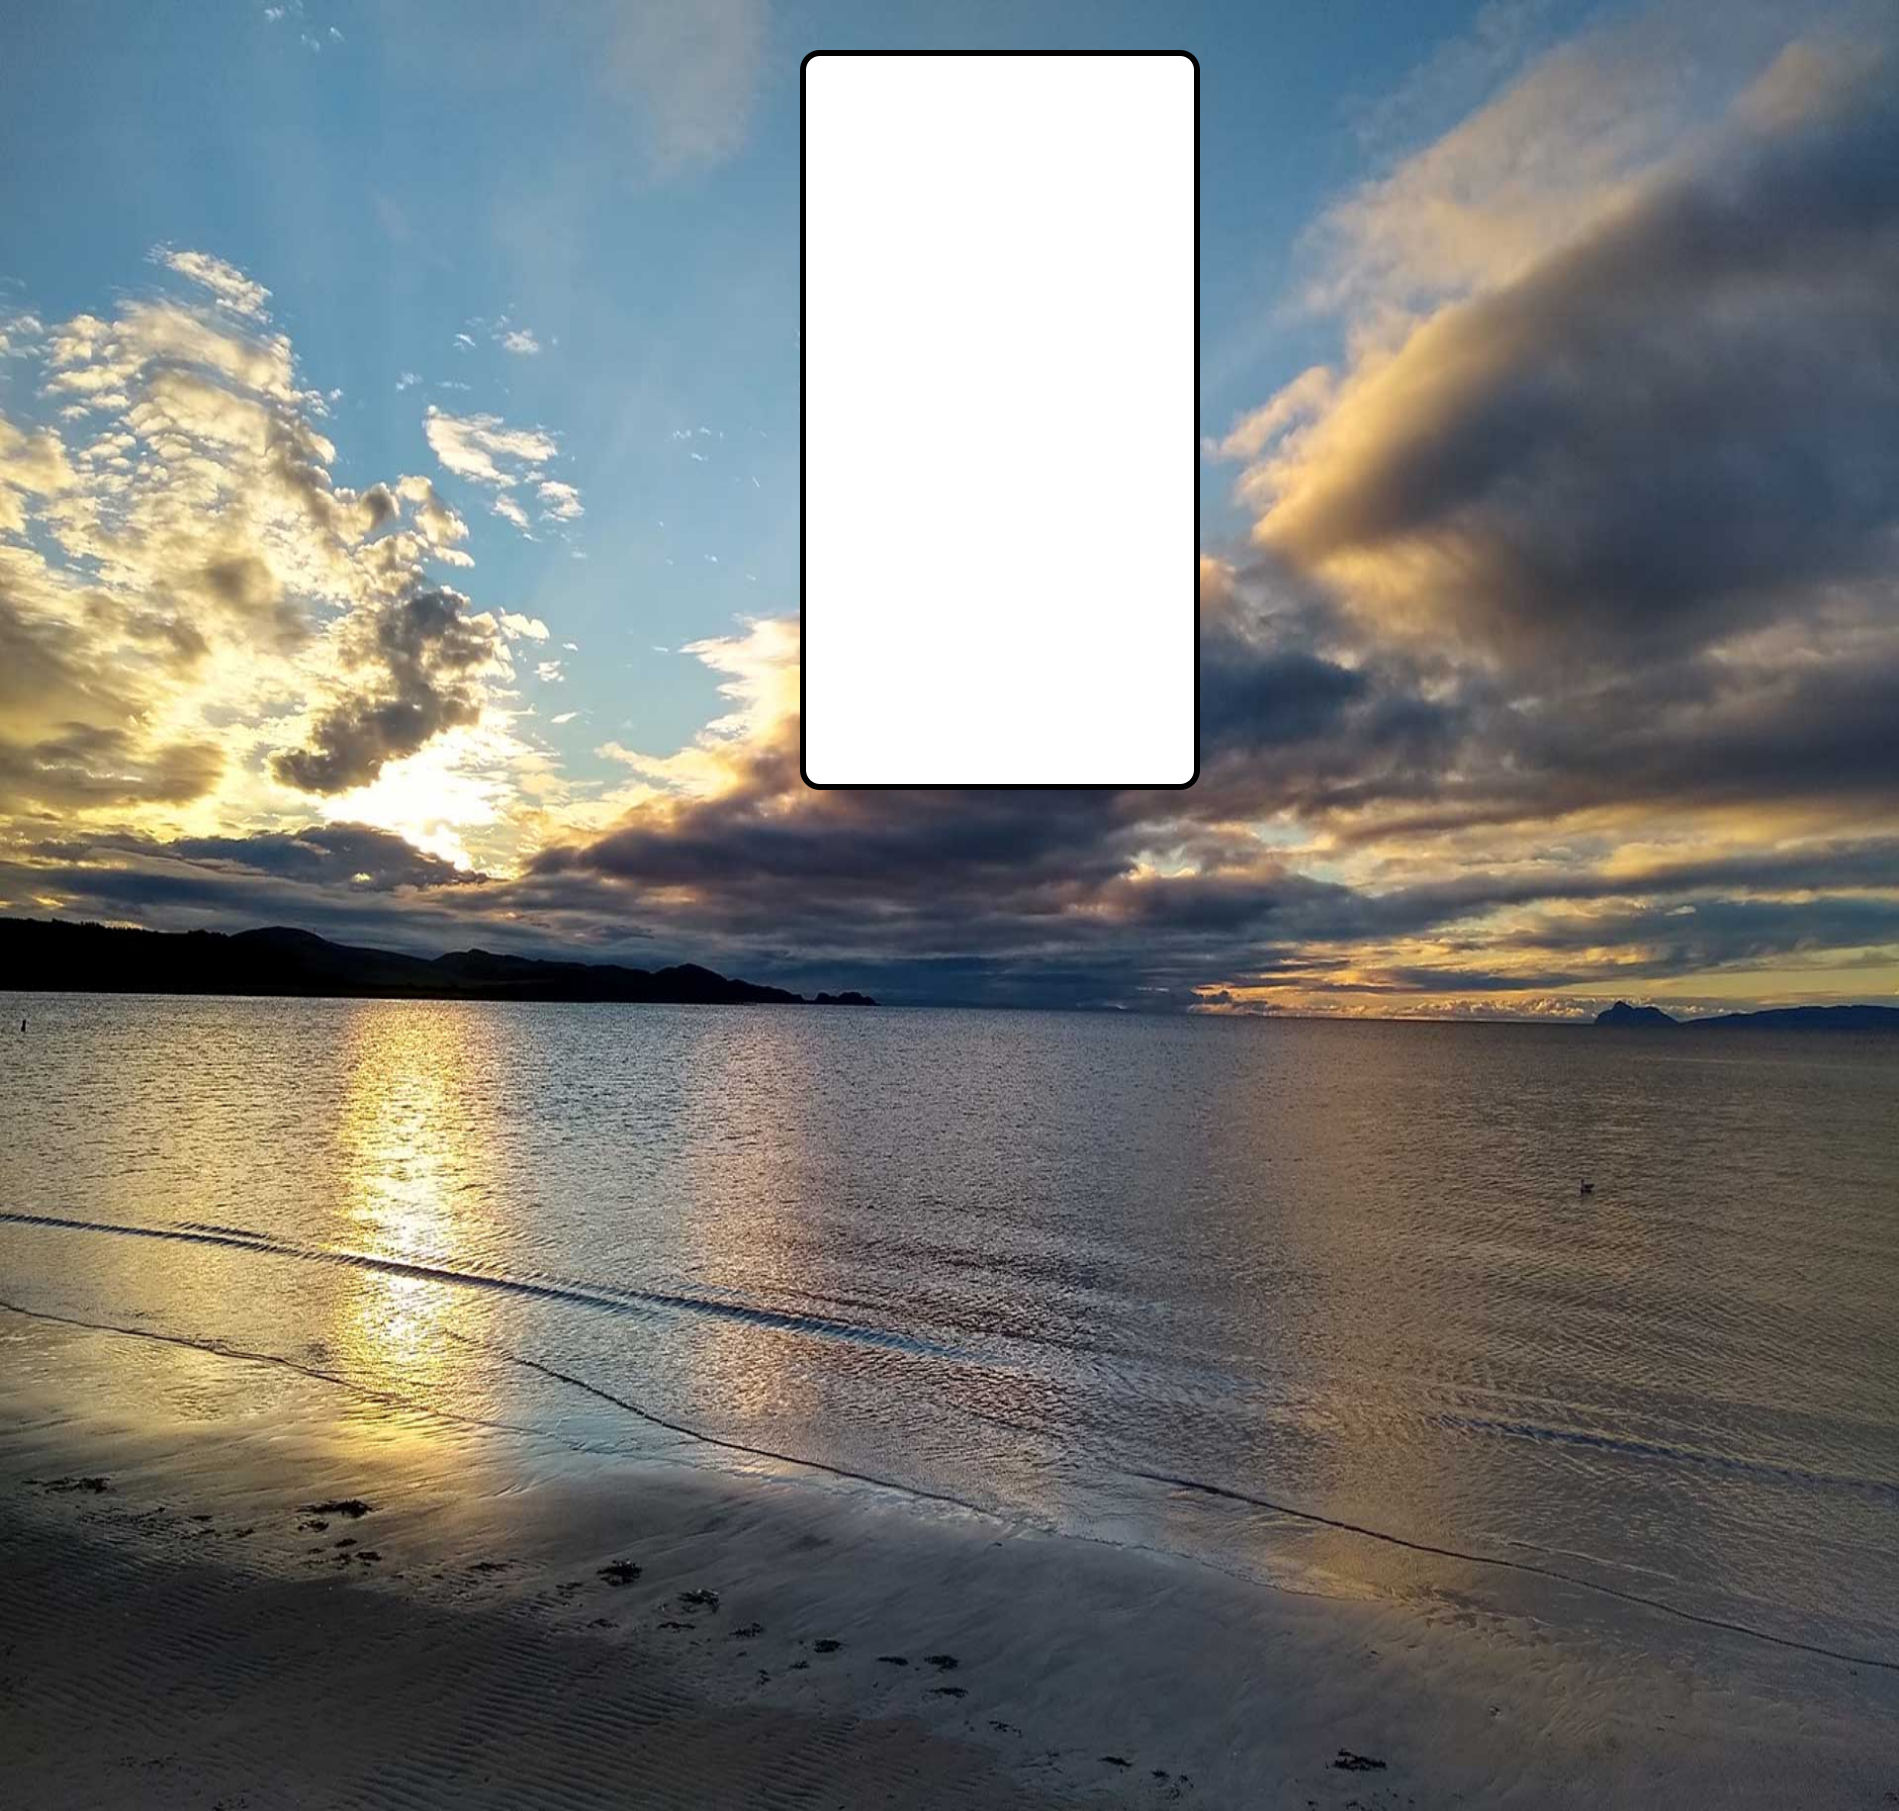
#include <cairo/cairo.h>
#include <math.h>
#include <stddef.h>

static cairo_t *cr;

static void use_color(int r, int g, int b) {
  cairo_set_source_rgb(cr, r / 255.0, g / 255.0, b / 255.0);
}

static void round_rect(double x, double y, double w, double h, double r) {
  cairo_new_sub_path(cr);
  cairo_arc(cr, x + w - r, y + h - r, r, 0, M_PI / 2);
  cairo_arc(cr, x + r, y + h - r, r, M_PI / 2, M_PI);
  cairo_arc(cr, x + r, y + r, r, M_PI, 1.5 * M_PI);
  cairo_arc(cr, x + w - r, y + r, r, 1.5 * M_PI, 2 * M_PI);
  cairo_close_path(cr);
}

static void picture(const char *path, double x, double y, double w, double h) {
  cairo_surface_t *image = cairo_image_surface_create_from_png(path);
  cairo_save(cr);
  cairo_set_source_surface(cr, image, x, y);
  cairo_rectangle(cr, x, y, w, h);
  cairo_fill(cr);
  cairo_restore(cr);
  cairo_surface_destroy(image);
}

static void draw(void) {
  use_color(255, 255, 255);
  cairo_paint(cr);
  picture("img_01.png", 0, 0, 1899, 1811);
  use_color(255, 255, 255);
  round_rect(803, 53, 394, 734, 17);
  cairo_fill_preserve(cr);
  use_color(0, 0, 0);
  cairo_set_line_width(cr, 6);
  cairo_stroke(cr);
}

int main(void) {
  cairo_surface_t *surface = cairo_image_surface_create(CAIRO_FORMAT_RGB24, 1899, 1811);
  cr = cairo_create(surface);
  cairo_font_options_t *options = cairo_font_options_create();
  cairo_font_options_set_hint_metrics(options, CAIRO_HINT_METRICS_OFF);
  cairo_font_options_set_hint_style(options, CAIRO_HINT_STYLE_NONE);
  cairo_set_font_options(cr, options);
  cairo_set_miter_limit(cr, 4);
  draw();
  cairo_surface_write_to_png(surface, "out.png");
  cairo_font_options_destroy(options);
  cairo_destroy(cr);
  cairo_surface_destroy(surface);
  return 0;
}
